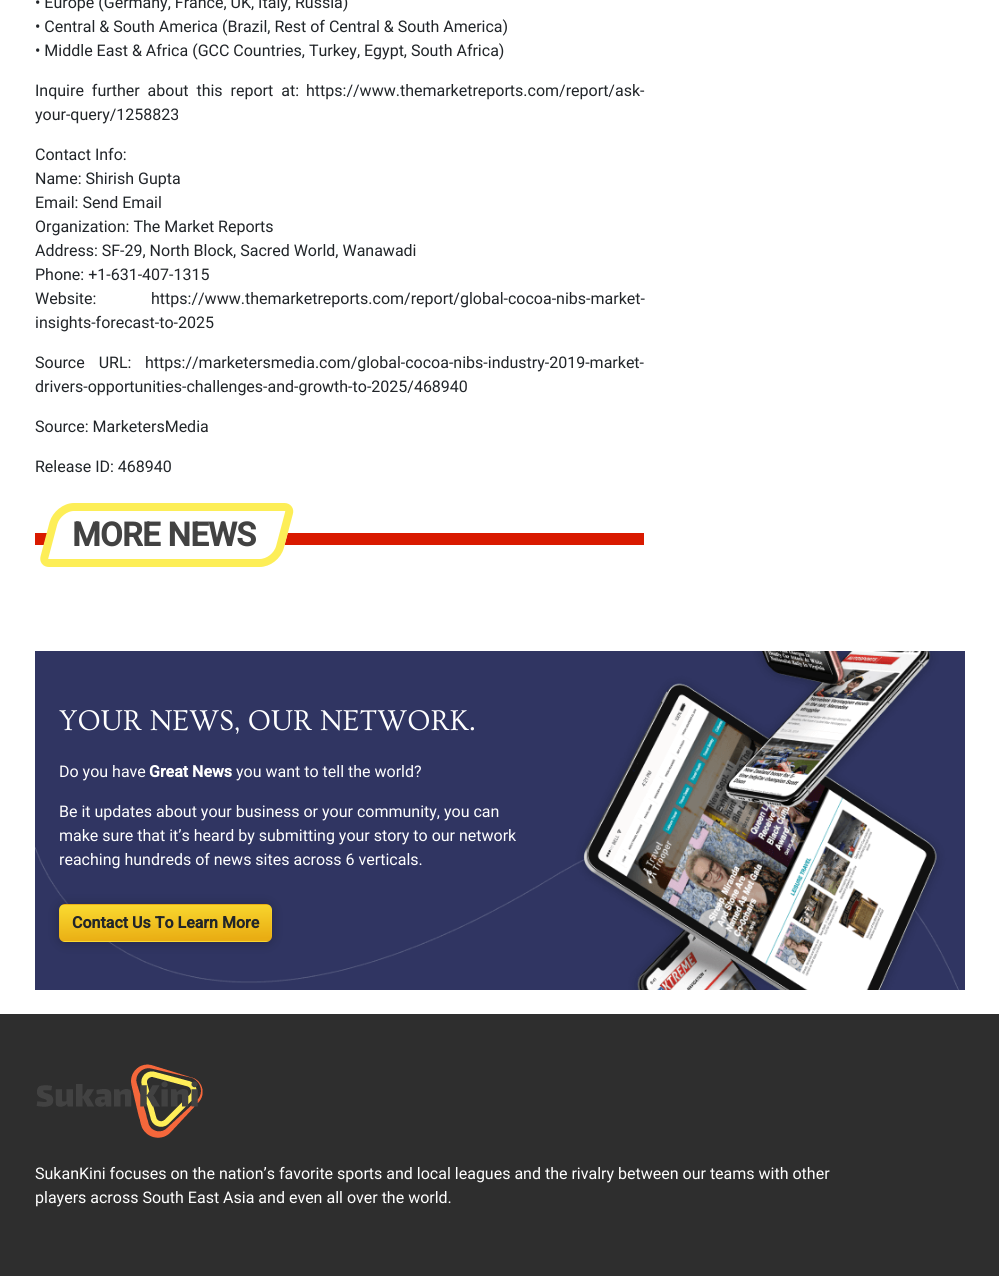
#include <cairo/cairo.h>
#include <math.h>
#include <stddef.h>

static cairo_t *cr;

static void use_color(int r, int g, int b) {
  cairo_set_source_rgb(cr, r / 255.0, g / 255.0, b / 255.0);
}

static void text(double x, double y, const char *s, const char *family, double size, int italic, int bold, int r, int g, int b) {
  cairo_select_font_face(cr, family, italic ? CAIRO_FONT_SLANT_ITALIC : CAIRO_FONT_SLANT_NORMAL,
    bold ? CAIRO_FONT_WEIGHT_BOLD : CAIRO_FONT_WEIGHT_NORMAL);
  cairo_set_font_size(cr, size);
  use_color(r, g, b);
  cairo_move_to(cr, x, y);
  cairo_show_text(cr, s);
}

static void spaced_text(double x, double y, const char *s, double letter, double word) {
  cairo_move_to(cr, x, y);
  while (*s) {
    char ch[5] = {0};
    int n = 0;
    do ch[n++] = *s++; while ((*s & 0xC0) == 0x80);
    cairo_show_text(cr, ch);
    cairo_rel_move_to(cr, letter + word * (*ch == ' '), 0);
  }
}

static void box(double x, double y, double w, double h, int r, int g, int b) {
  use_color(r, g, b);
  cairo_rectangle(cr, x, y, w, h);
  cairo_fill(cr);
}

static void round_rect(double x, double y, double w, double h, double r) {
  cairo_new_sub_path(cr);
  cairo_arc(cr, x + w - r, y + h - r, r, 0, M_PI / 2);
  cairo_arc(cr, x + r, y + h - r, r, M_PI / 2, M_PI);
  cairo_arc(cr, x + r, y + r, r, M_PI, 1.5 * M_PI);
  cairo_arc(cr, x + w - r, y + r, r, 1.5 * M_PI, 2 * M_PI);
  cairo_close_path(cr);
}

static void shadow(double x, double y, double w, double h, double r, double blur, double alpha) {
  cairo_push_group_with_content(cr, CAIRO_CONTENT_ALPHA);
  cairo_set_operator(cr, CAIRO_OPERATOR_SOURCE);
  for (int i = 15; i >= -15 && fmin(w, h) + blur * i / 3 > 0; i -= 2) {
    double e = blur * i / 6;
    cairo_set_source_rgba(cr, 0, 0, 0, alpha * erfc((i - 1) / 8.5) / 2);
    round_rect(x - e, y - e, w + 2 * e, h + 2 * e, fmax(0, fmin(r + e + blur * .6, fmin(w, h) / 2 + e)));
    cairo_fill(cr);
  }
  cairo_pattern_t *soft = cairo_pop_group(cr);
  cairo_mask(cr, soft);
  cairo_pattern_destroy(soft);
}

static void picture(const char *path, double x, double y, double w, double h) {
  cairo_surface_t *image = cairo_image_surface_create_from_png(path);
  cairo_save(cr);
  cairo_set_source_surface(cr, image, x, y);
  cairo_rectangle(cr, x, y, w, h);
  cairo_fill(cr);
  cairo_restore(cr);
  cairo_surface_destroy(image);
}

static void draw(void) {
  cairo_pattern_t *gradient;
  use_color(255, 255, 255);
  cairo_paint(cr);
  box(35, 533, 609, 12, 217, 26, 0);
  use_color(255, 255, 255);
  cairo_new_path(cr);
  cairo_move_to(cr, 75, 503);
  cairo_line_to(cr, 286, 503);
  cairo_curve_to(cr, 291, 503, 294, 508, 293, 513);
  cairo_line_to(cr, 284, 547);
  cairo_curve_to(cr, 281, 558, 270, 567, 258, 567);
  cairo_line_to(cr, 48, 567);
  cairo_curve_to(cr, 42, 567, 39, 563, 41, 557);
  cairo_line_to(cr, 50, 523);
  cairo_curve_to(cr, 53, 512, 64, 503, 75, 503);
  cairo_close_path(cr);
  cairo_fill(cr);
  cairo_new_path(cr);
  cairo_move_to(cr, 74, 507);
  cairo_line_to(cr, 284.5, 507);
  cairo_curve_to(cr, 288, 507, 290, 510, 289, 513);
  cairo_line_to(cr, 280, 547);
  cairo_curve_to(cr, 277.5, 556, 268.5, 563, 259.5, 563);
  cairo_line_to(cr, 49, 563);
  cairo_curve_to(cr, 45.5, 563, 43.5, 560.5, 44.5, 557);
  cairo_line_to(cr, 53.5, 523);
  cairo_curve_to(cr, 56, 514.5, 65, 507, 74, 507);
  cairo_close_path(cr);
  use_color(253, 238, 87);
  cairo_set_line_width(cr, 8);
  cairo_stroke(cr);
  picture("img_01.png", 35, 651, 930, 339);
  use_color(0, 0, 0);
  shadow(59, 905, 213, 38, 6, 6, 0.25);
  cairo_save(cr);
  round_rect(59, 904, 213, 38, 6);
  cairo_clip(cr);
  gradient = cairo_pattern_create_linear(165, 868, 166, 906);
  cairo_pattern_add_color_stop_rgba(gradient, 0.02, 0.976, 0.847, 0.184, 1);
  cairo_pattern_add_color_stop_rgba(gradient, 0.96, 0.914, 0.678, 0.075, 1);
  cairo_set_source(cr, gradient);
  cairo_pattern_destroy(gradient);
  cairo_rectangle(cr, 60, 904, 211, 1);
  cairo_fill(cr);
  gradient = cairo_pattern_create_linear(-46, 904, -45, 942);
  cairo_pattern_add_color_stop_rgba(gradient, 0.02, 0.976, 0.847, 0.184, 1);
  cairo_pattern_add_color_stop_rgba(gradient, 0.96, 0.914, 0.678, 0.075, 1);
  cairo_set_source(cr, gradient);
  cairo_pattern_destroy(gradient);
  cairo_rectangle(cr, 59, 905, 1, 36);
  cairo_fill(cr);
  gradient = cairo_pattern_create_linear(165, 904, 166, 942);
  cairo_pattern_add_color_stop_rgba(gradient, 0.02, 0.976, 0.847, 0.184, 1);
  cairo_pattern_add_color_stop_rgba(gradient, 0.96, 0.914, 0.678, 0.075, 1);
  cairo_set_source(cr, gradient);
  cairo_pattern_destroy(gradient);
  cairo_rectangle(cr, 60, 905, 211, 36);
  cairo_fill(cr);
  gradient = cairo_pattern_create_linear(376, 904, 377, 942);
  cairo_pattern_add_color_stop_rgba(gradient, 0.02, 0.976, 0.847, 0.184, 1);
  cairo_pattern_add_color_stop_rgba(gradient, 0.96, 0.914, 0.678, 0.075, 1);
  cairo_set_source(cr, gradient);
  cairo_pattern_destroy(gradient);
  cairo_rectangle(cr, 271, 905, 1, 36);
  cairo_fill(cr);
  gradient = cairo_pattern_create_linear(165, 940, 166, 978);
  cairo_pattern_add_color_stop_rgba(gradient, 0.02, 0.976, 0.847, 0.184, 1);
  cairo_pattern_add_color_stop_rgba(gradient, 0.96, 0.914, 0.678, 0.075, 1);
  cairo_set_source(cr, gradient);
  cairo_pattern_destroy(gradient);
  cairo_rectangle(cr, 60, 941, 211, 1);
  cairo_fill(cr);
  cairo_restore(cr);
  box(0, 1014, 999, 262, 46, 46, 46);
  picture("img_02.png", 36, 1064, 167, 74);
  text(35, 8, "• Europe (Germany, France, UK, Italy, Russia)", "Roboto", 16, 0, 0, 33, 37, 41);
  text(35, 32, "• Central & South America (Brazil, Rest of Central & South America)", "Roboto", 16, 0, 0, 33, 37, 41);
  text(35, 56, "• Middle East & Africa (GCC Countries, Turkey, Egypt, South Africa)", "Roboto", 16, 0, 0, 33, 37, 41);
  spaced_text(35, 96, "Inquire further about this report at:", 0, 4);
  text(306, 96, "https://www.themarketreports.com/report/ask-", "Roboto", 16, 0, 0, 33, 37, 41);
  text(35, 120, "your-query/1258823", "Roboto", 16, 0, 0, 33, 37, 41);
  text(35, 160, "Contact Info:", "Roboto", 16, 0, 0, 33, 37, 41);
  text(35, 184, "Name: Shirish Gupta", "Roboto", 16, 0, 0, 33, 37, 41);
  text(35, 208, "Email: Send Email", "Roboto", 16, 0, 0, 33, 37, 41);
  text(35, 232, "Organization: The Market Reports", "Roboto", 16, 0, 0, 33, 37, 41);
  text(35, 256, "Address: SF-29, North Block, Sacred World, Wanawadi", "Roboto", 16, 0, 0, 33, 37, 41);
  text(35, 280, "Phone: +1-631-407-1315", "Roboto", 16, 0, 0, 33, 37, 41);
  text(35, 304, "Website:", "Roboto", 16, 0, 0, 33, 37, 41);
  text(151, 304, "https://www.themarketreports.com/report/global-cocoa-nibs-market-", "Roboto", 16, 0, 0, 33, 37, 41);
  text(35, 328, "insights-forecast-to-2025", "Roboto", 16, 0, 0, 33, 37, 41);
  spaced_text(35, 368, "Source URL:", 0, 10);
  text(145, 368, "https://marketersmedia.com/global-cocoa-nibs-industry-2019-market-", "Roboto", 16, 0, 0, 33, 37, 41);
  text(35, 392, "drivers-opportunities-challenges-and-growth-to-2025/468940", "Roboto", 16, 0, 0, 33, 37, 41);
  text(35, 432, "Source: MarketersMedia", "Roboto", 16, 0, 0, 33, 37, 41);
  text(35, 472, "Release ID: 468940", "Roboto", 16, 0, 0, 33, 37, 41);
  cairo_select_font_face(cr, "Roboto", CAIRO_FONT_SLANT_NORMAL, CAIRO_FONT_WEIGHT_BOLD);
  cairo_set_font_size(cr, 33);
  use_color(66, 66, 66);
  spaced_text(72, 546, "MORE NEWS", -0.75, 0);
  text(59, 730, "YOUR NEWS, OUR NETWORK.", "Ovo", 30, 0, 0, 255, 255, 255);
  text(59, 777, "Do you have", "Roboto", 16, 0, 0, 255, 255, 255);
  text(149, 777, "Great News", "Roboto", 16, 0, 1, 255, 255, 255);
  text(236, 777, "you want to tell the world?", "Roboto", 16, 0, 0, 255, 255, 255);
  text(59, 817, "Be it updates about your business or your community, you can", "Roboto", 16, 0, 0, 255, 255, 255);
  text(59, 841, "make sure that it’s heard by submitting your story to our network", "Roboto", 16, 0, 0, 255, 255, 255);
  text(59, 865, "reaching hundreds of news sites across 6 verticals.", "Roboto", 16, 0, 0, 255, 255, 255);
  text(72, 928, "Contact Us To Learn More", "Roboto", 16, 0, 1, 33, 37, 41);
  text(35, 1179, "SukanKini focuses on the nation’s favorite sports and local leagues and the rivalry between our teams with other", "Roboto", 16, 0, 0, 255, 255, 255);
  text(35, 1203, "players across South East Asia and even all over the world.", "Roboto", 16, 0, 0, 255, 255, 255);
}

int main(void) {
  cairo_surface_t *surface = cairo_image_surface_create(CAIRO_FORMAT_RGB24, 999, 1276);
  cr = cairo_create(surface);
  cairo_font_options_t *options = cairo_font_options_create();
  cairo_font_options_set_hint_metrics(options, CAIRO_HINT_METRICS_OFF);
  cairo_font_options_set_hint_style(options, CAIRO_HINT_STYLE_NONE);
  cairo_set_font_options(cr, options);
  cairo_set_miter_limit(cr, 4);
  draw();
  cairo_surface_write_to_png(surface, "out.png");
  cairo_font_options_destroy(options);
  cairo_destroy(cr);
  cairo_surface_destroy(surface);
  return 0;
}
